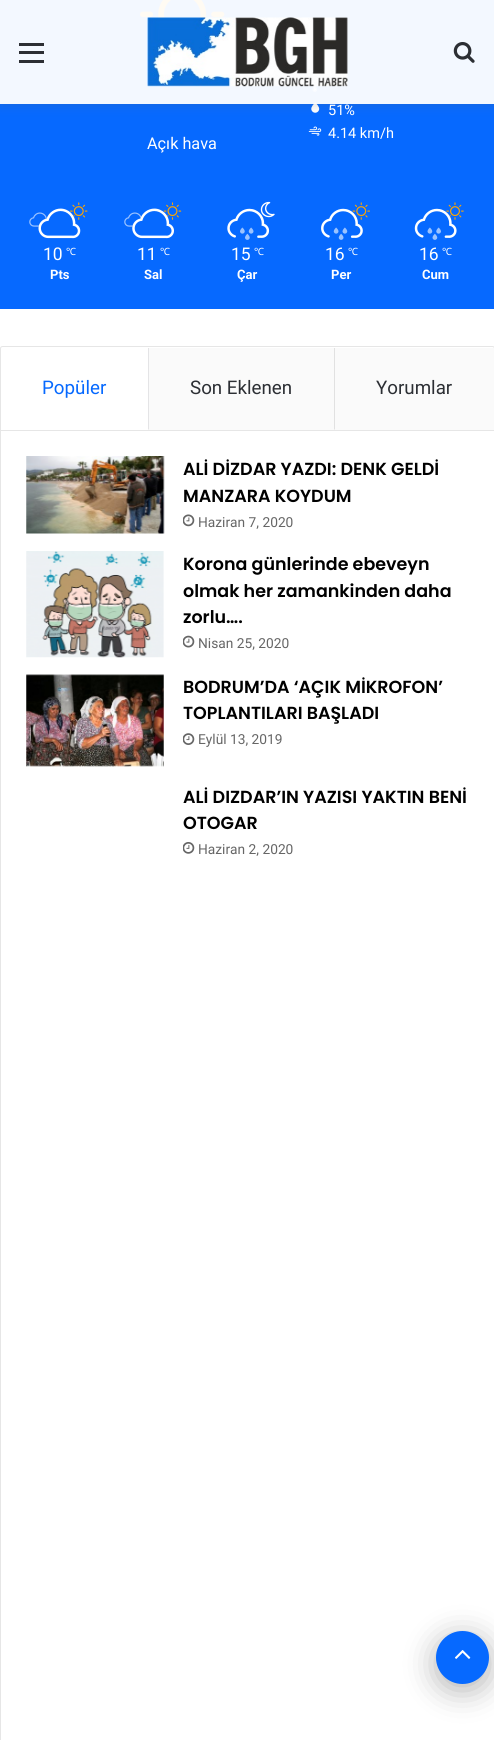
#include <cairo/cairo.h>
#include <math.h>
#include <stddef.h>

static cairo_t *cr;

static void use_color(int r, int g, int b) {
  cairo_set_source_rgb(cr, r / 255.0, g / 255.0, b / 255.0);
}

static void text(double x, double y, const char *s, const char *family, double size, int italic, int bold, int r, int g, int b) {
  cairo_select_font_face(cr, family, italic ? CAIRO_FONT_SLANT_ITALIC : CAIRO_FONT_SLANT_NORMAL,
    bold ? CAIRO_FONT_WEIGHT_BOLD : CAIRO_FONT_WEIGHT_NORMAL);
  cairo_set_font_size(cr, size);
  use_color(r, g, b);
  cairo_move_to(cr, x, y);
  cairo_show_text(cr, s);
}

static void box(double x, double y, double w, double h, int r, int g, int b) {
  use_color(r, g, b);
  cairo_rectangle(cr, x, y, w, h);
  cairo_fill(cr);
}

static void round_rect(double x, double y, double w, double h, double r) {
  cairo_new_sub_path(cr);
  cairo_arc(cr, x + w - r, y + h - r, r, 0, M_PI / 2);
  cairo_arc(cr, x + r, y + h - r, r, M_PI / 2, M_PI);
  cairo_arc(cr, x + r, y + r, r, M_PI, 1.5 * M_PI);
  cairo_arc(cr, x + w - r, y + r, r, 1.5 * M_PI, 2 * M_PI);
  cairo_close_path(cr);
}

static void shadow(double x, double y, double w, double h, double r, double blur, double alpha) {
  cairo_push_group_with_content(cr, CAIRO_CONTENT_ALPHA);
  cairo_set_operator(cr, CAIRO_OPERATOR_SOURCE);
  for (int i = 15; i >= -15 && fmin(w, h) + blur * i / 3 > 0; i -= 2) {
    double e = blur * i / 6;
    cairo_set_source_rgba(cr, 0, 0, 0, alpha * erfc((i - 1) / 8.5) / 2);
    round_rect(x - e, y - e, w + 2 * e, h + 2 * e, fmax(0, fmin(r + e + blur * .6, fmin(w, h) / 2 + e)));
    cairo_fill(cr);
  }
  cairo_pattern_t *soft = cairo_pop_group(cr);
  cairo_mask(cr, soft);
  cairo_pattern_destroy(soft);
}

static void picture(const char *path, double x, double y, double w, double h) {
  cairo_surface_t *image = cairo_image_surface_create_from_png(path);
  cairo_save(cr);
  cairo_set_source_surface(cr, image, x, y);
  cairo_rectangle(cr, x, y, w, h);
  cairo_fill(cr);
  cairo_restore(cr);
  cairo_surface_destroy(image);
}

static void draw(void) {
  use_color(255, 255, 255);
  cairo_paint(cr);
  box(0, 0, 494, 309, 6, 105, 255);
  picture("img_03.png", 312, 86, 6, 6);
  picture("img_04.png", 311, 102, 9, 11);
  picture("img_06.png", 140, 0, 85, 18);
  cairo_save(cr);
  cairo_set_fill_rule(cr, CAIRO_FILL_RULE_EVEN_ODD);
  cairo_new_path(cr);
  cairo_move_to(cr, 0, 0);
  cairo_line_to(cr, 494, 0);
  cairo_line_to(cr, 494, 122);
  cairo_line_to(cr, 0, 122);
  cairo_close_path(cr);
  cairo_move_to(cr, 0, 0);
  cairo_line_to(cr, 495, 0);
  cairo_line_to(cr, 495, 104);
  cairo_line_to(cr, 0, 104);
  cairo_close_path(cr);
  cairo_clip(cr);
  use_color(99, 99, 99);
  shadow(0, 3, 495, 103, 0, 5, 0.2);
  cairo_restore(cr);
  cairo_set_source_rgba(cr, 1, 1, 1, 0.95);
  cairo_rectangle(cr, 0, 0, 494, 104);
  cairo_fill(cr);
  box(19, 51, 25, 3, 44, 47, 52);
  box(19, 43, 25, 3, 44, 47, 52);
  box(19, 60, 25, 3, 44, 47, 52);
  picture("img_01.png", 147, 17, 201, 70);
  picture("img_02.png", 453, 42, 22, 21);
  picture("img_05.png", 308, 126, 14, 10);
  picture("img_07.png", 70, 202, 18, 18);
  picture("img_09.png", 29, 212, 18, 15);
  picture("img_10.png", 38, 215, 36, 12);
  picture("img_08.png", 38, 208, 43, 31);
  picture("img_11.png", 163, 202, 19, 18);
  picture("img_09.png", 124, 212, 18, 15);
  picture("img_13.png", 132, 216, 36, 11);
  picture("img_12.png", 132, 208, 42, 31);
  picture("img_14.png", 260, 201, 15, 17);
  picture("img_15.png", 227, 208, 43, 30);
  picture("img_16.png", 240, 227, 5, 7);
  picture("img_17.png", 248, 227, 6, 7);
  picture("img_18.png", 245, 233, 5, 7);
  picture("img_19.png", 352, 202, 18, 18);
  cairo_set_source_rgba(cr, 0.024, 0.412, 1, 0.97);
  cairo_rectangle(cr, 354, 215, 3, 3);
  cairo_fill(cr);
  picture("img_20.png", 321, 208, 42, 30);
  picture("img_17.png", 333, 227, 6, 7);
  picture("img_21.png", 342, 227, 6, 7);
  picture("img_22.png", 338, 233, 6, 7);
  picture("img_23.png", 446, 202, 18, 18);
  picture("img_25.png", 449, 215, 1, 2);
  picture("img_24.png", 414, 208, 43, 30);
  picture("img_21.png", 427, 227, 6, 7);
  picture("img_26.png", 436, 227, 5, 7);
  picture("img_27.png", 432, 233, 6, 7);
  round_rect(0.5, 346.5, 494, 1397, 2);
  use_color(230, 230, 230);
  cairo_set_line_width(cr, 1);
  cairo_stroke(cr);
  box(1, 430, 493, 1, 230, 230, 230);
  use_color(228, 228, 230);
  cairo_new_path(cr);
  cairo_move_to(cr, 149, 348);
  cairo_line_to(cr, 149, 430);
  cairo_line_to(cr, 148, 429);
  cairo_line_to(cr, 148, 348);
  cairo_close_path(cr);
  cairo_fill(cr);
  box(149, 348, 345, 82, 250, 250, 250);
  use_color(225, 225, 225);
  cairo_new_path(cr);
  cairo_move_to(cr, 335, 348);
  cairo_line_to(cr, 335, 430);
  cairo_line_to(cr, 334, 429);
  cairo_line_to(cr, 334, 348);
  cairo_close_path(cr);
  cairo_fill(cr);
  picture("img_28.png", 26, 456, 139, 78);
  picture("img_29.png", 183, 514, 12, 13);
  picture("img_30.png", 26, 551, 138, 107);
  picture("img_31.png", 183, 635, 12, 13);
  picture("img_32.png", 26, 674, 138, 93);
  picture("img_33.png", 183, 733, 12, 12);
  picture("img_34.png", 183, 842, 12, 12);
  use_color(0, 0, 0);
  shadow(436, 1638, 53, 52, 26, 15.5, 0.3);
  use_color(6, 105, 255);
  cairo_arc(cr, 462.5, 1657.5, 26.5, 0, 2 * M_PI);
  cairo_fill(cr);
  picture("img_35.png", 455, 1650, 16, 9);
  text(328, 115, "51%", "Roboto", 14.5, 0, 0, 255, 255, 255);
  text(328, 138, "4.14 km/h", "Roboto", 14.5, 0, 0, 255, 255, 255);
  text(147, 149, "Açık hava", "Roboto", 16.25, 0, 0, 255, 255, 255);
  text(43, 260, "10", "Roboto", 17.5, 0, 0, 255, 255, 255);
  text(66, 255, "℃", "Noto Sans", 10, 0, 0, 255, 255, 255);
  text(50, 279, "Pts", "Roboto", 13, 0, 1, 255, 255, 255);
  text(137, 260, "11", "Roboto", 17.5, 0, 0, 255, 255, 255);
  text(160, 255, "℃", "Noto Sans", 10, 0, 0, 255, 255, 255);
  text(144, 279, "Sal", "Roboto", 13, 0, 1, 255, 255, 255);
  text(231, 260, "15", "Roboto", 17.5, 0, 0, 255, 255, 255);
  text(254, 255, "℃", "Noto Sans", 10, 0, 0, 255, 255, 255);
  text(237, 279, "Çar", "Roboto", 13, 0, 1, 255, 255, 255);
  text(325, 260, "16", "Roboto", 17.5, 0, 0, 255, 255, 255);
  text(348, 255, "℃", "Noto Sans", 10, 0, 0, 255, 255, 255);
  text(331, 279, "Per", "Roboto", 13, 0, 1, 255, 255, 255);
  text(419, 260, "16", "Roboto", 17.5, 0, 0, 255, 255, 255);
  text(442, 255, "℃", "Noto Sans", 10, 0, 0, 255, 255, 255);
  text(422, 279, "Cum", "Roboto", 13, 0, 1, 255, 255, 255);
  text(42, 394, "Popüler", "Roboto", 18.75, 0, 0, 6, 105, 255);
  text(190, 394, "Son Eklenen", "Roboto", 18.75, 0, 0, 44, 47, 52);
  text(376, 394, "Yorumlar", "Roboto", 18.75, 0, 0, 44, 47, 52);
  text(183, 475, "ALİ DİZDAR YAZDI: DENK GELDİ", "Poppins SemiBold", 17.5, 0, 0, 0, 0, 0);
  text(183, 502, "MANZARA KOYDUM", "Poppins SemiBold", 17.5, 0, 0, 0, 0, 0);
  text(198, 527, "Haziran 7, 2020", "Roboto", 13.75, 0, 0, 102, 102, 102);
  text(183, 570, "Korona günlerinde ebeveyn", "Poppins SemiBold", 17.5, 0, 0, 0, 0, 0);
  text(183, 597, "olmak her zamankinden daha", "Poppins SemiBold", 17.5, 0, 0, 0, 0, 0);
  text(183, 623, "zorlu….", "Poppins SemiBold", 17.5, 0, 0, 0, 0, 0);
  text(198, 648, "Nisan 25, 2020", "Roboto", 13.75, 0, 0, 102, 102, 102);
  text(183, 693, "BODRUM’DA ‘AÇIK MİKROFON’", "Poppins SemiBold", 17.5, 0, 0, 0, 0, 0);
  text(183, 719, "TOPLANTILARI BAŞLADI", "Poppins SemiBold", 17.5, 0, 0, 0, 0, 0);
  text(198, 744, "Eylül 13, 2019", "Roboto", 13.75, 0, 0, 102, 102, 102);
  text(183, 803, "ALİ DIZDAR’IN YAZISI YAKTIN BENİ", "Poppins SemiBold", 17.5, 0, 0, 0, 0, 0);
  text(183, 829, "OTOGAR", "Poppins SemiBold", 17.5, 0, 0, 0, 0, 0);
  text(198, 854, "Haziran 2, 2020", "Roboto", 13.75, 0, 0, 102, 102, 102);
}

int main(void) {
  cairo_surface_t *surface = cairo_image_surface_create(CAIRO_FORMAT_RGB24, 494, 1740);
  cr = cairo_create(surface);
  cairo_font_options_t *options = cairo_font_options_create();
  cairo_font_options_set_hint_metrics(options, CAIRO_HINT_METRICS_OFF);
  cairo_font_options_set_hint_style(options, CAIRO_HINT_STYLE_NONE);
  cairo_set_font_options(cr, options);
  cairo_set_miter_limit(cr, 4);
  draw();
  cairo_surface_write_to_png(surface, "out.png");
  cairo_font_options_destroy(options);
  cairo_destroy(cr);
  cairo_surface_destroy(surface);
  return 0;
}
